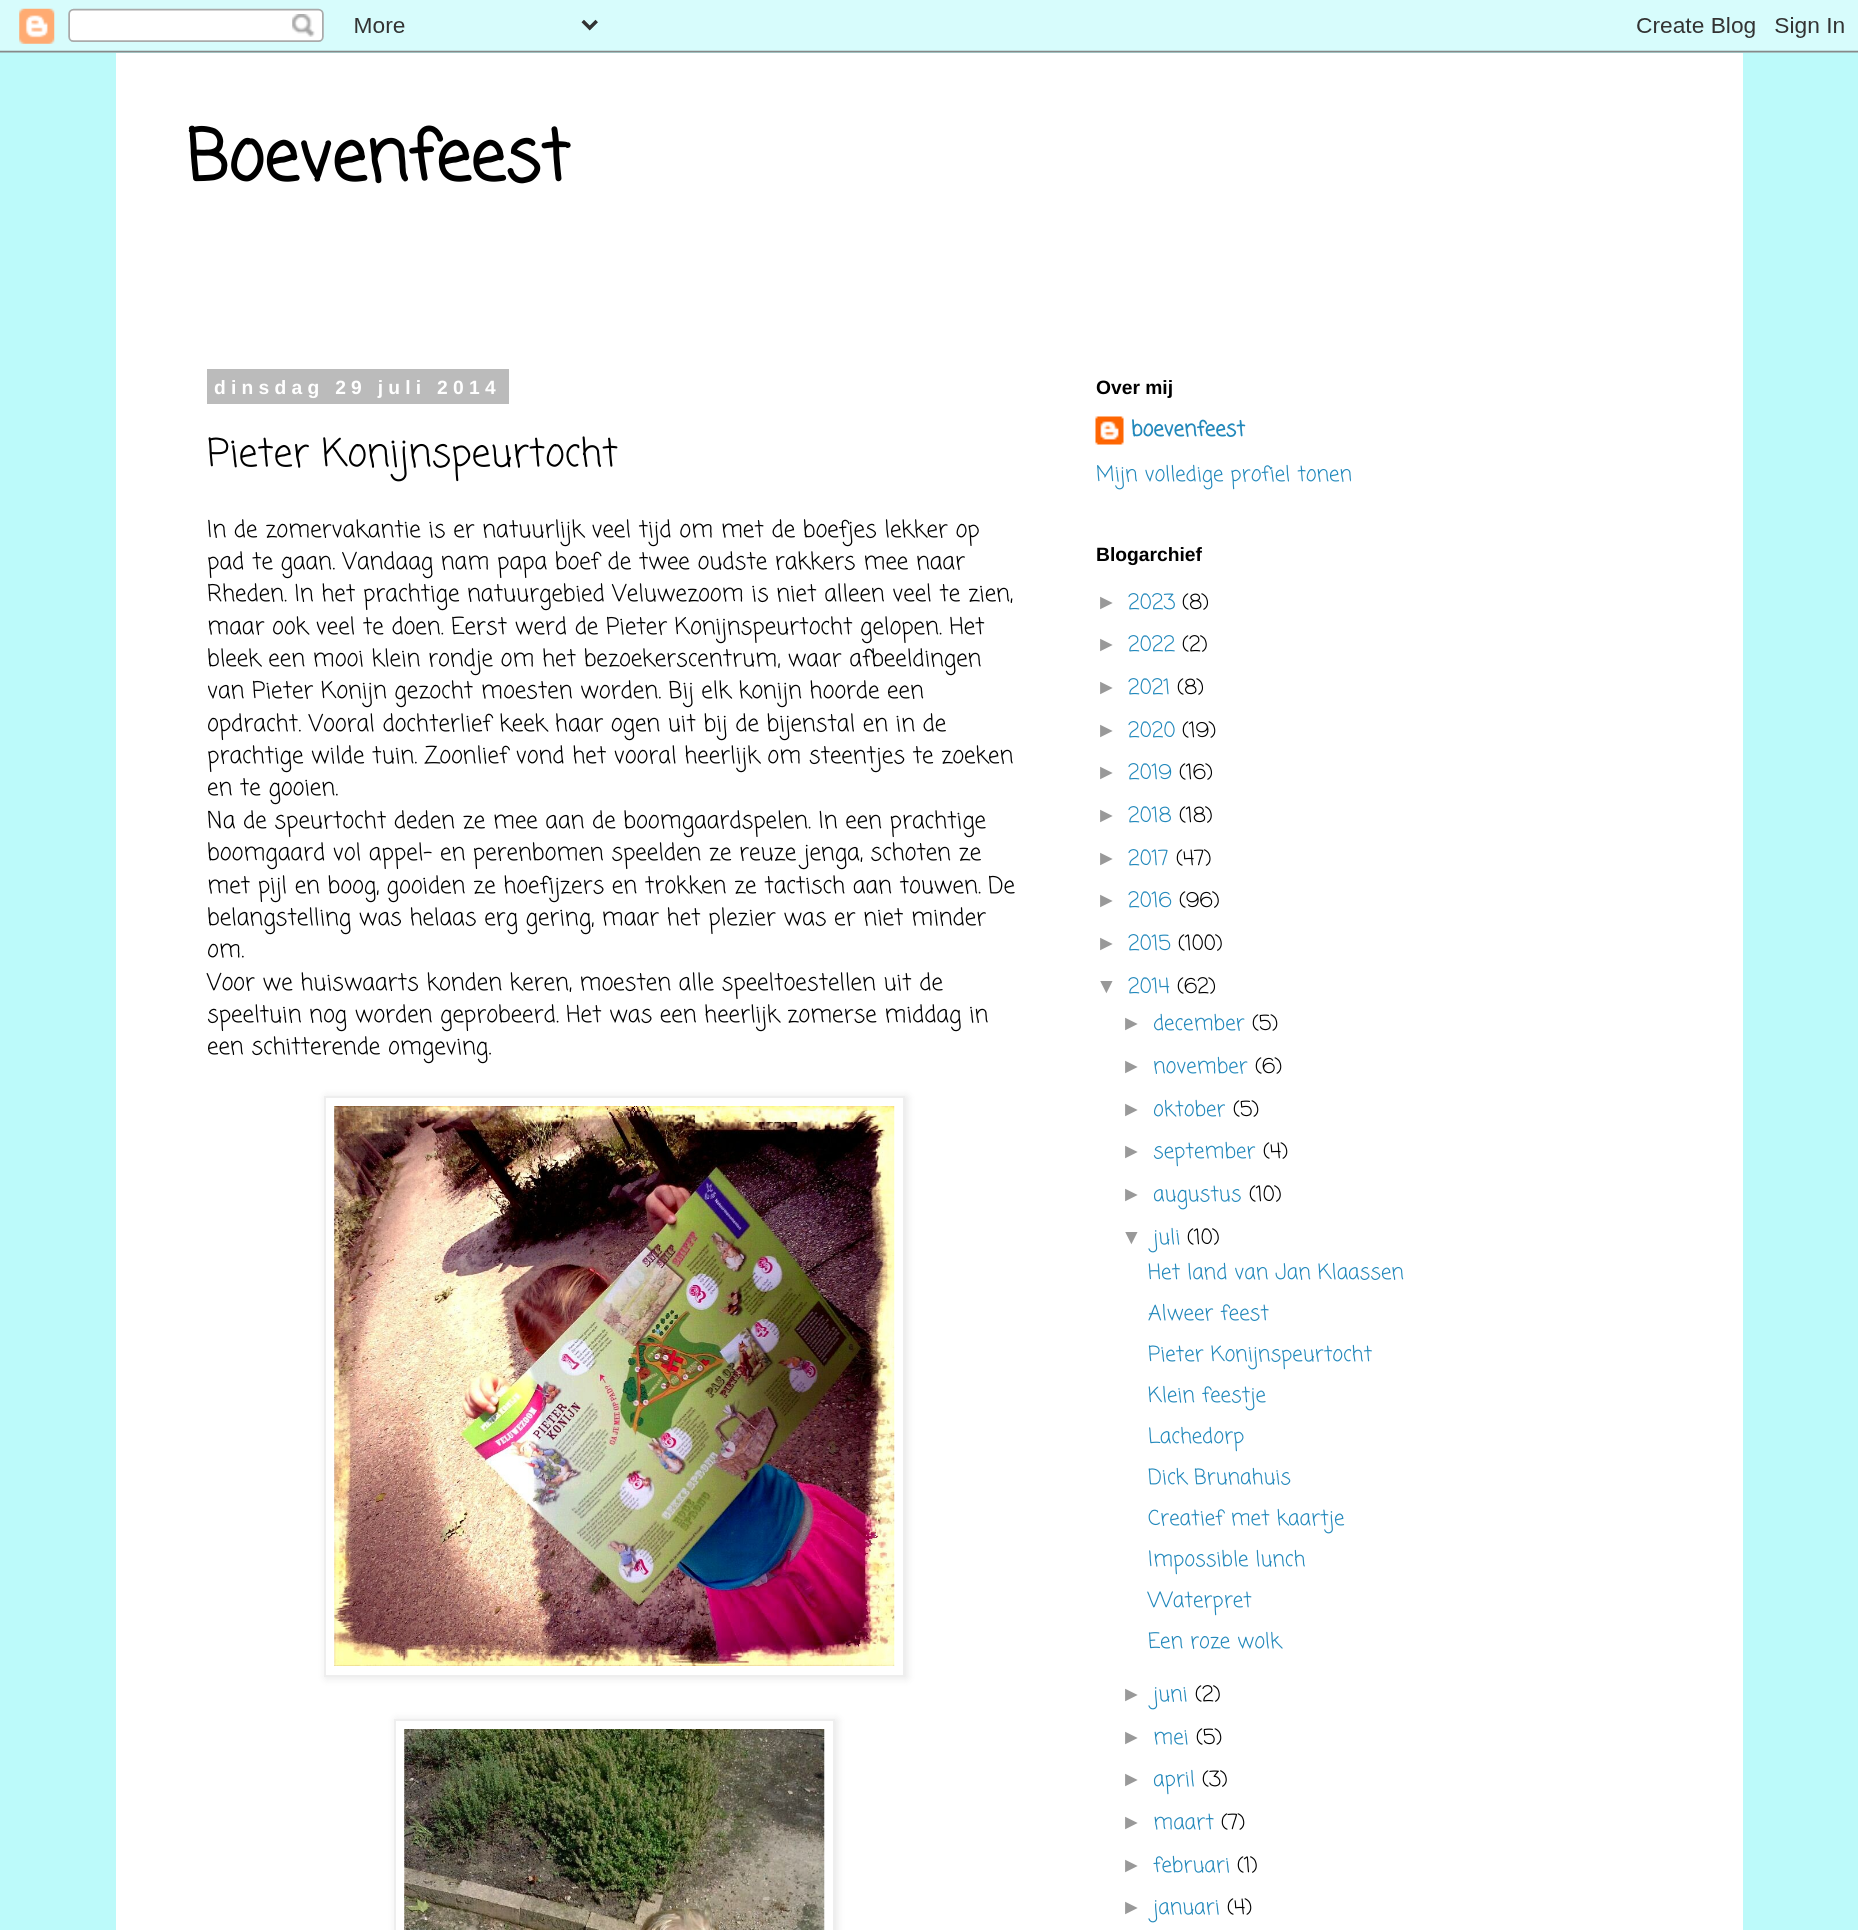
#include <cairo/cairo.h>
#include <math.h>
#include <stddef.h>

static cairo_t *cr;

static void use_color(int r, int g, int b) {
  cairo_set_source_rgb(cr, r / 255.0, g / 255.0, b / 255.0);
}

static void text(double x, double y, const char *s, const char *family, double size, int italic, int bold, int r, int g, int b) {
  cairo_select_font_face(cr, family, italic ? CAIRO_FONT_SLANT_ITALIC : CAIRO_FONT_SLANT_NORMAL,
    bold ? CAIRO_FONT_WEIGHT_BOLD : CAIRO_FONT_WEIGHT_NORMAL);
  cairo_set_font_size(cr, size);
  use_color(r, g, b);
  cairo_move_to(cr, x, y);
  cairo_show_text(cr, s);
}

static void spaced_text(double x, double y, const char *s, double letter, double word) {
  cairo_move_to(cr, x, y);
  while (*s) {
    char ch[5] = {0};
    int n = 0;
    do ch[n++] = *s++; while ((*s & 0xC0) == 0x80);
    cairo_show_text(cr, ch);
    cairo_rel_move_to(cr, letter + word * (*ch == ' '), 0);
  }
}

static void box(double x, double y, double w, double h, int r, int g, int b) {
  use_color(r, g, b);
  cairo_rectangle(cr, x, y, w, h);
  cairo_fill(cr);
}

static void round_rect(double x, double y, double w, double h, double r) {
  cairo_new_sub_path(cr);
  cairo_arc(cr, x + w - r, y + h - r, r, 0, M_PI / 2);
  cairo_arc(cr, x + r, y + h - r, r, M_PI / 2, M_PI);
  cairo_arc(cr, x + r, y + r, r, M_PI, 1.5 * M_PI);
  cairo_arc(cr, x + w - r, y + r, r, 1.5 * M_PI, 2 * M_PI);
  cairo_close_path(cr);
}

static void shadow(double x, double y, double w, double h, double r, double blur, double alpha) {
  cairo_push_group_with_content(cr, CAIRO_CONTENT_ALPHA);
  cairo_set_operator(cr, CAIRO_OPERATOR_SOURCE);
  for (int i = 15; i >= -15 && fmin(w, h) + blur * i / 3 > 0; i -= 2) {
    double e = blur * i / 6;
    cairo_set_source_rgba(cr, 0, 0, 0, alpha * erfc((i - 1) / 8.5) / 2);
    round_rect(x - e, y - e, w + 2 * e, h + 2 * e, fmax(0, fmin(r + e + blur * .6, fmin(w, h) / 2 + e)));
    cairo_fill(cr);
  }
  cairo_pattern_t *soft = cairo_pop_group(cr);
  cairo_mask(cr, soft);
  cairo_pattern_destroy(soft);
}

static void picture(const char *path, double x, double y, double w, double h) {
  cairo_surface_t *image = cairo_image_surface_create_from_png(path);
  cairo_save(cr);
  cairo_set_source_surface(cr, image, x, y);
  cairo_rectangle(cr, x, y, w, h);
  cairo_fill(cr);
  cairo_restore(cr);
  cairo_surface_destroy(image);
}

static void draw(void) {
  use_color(188, 250, 250);
  cairo_paint(cr);
  picture("img_01.png", 0, 0, 1858, 53);
  box(116, 53, 1627, 1877, 255, 255, 255);
  box(207, 369, 302, 35, 187, 187, 187);
  use_color(0, 0, 0);
  shadow(326, 1097, 581, 581, 0, 4.5, 0.1);
  use_color(255, 255, 255);
  cairo_rectangle(cr, 325, 1097, 579, 579);
  cairo_fill_preserve(cr);
  use_color(238, 238, 238);
  cairo_stroke(cr);
  picture("img_02.png", 334, 1106, 561, 560);
  use_color(0, 0, 0);
  shadow(396, 1720, 441, 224, 0, 4.5, 0.1);
  use_color(255, 255, 255);
  cairo_rectangle(cr, 395, 1720, 439, 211);
  cairo_fill_preserve(cr);
  use_color(238, 238, 238);
  cairo_stroke(cr);
  picture("img_03.png", 404, 1729, 421, 201);
  picture("img_04.png", 1095, 416, 29, 29);
  text(186, 180, "Boevenfeest", "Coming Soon", 70, 0, 1, 0, 0, 0);
  cairo_select_font_face(cr, "Liberation Sans", CAIRO_FONT_SLANT_NORMAL, CAIRO_FONT_WEIGHT_BOLD);
  cairo_set_font_size(cr, 19.25);
  use_color(255, 255, 255);
  spaced_text(214, 394, "dinsdag 29 juli 2014", 5.25, 0);
  text(207, 466, "Pieter Konijnspeurtocht", "Coming Soon", 38.5, 0, 0, 0, 0, 0);
  text(207, 537, "In de zomervakantie is er natuurlijk veel tijd om met de boefjes lekker op", "Coming Soon", 23.1, 0, 0, 0, 0, 0);
  text(207, 569, "pad te gaan. Vandaag nam papa boef de twee oudste rakkers mee naar", "Coming Soon", 23.1, 0, 0, 0, 0, 0);
  text(207, 601, "Rheden. In het prachtige natuurgebied Veluwezoom is niet alleen veel te zien,", "Coming Soon", 23.1, 0, 0, 0, 0, 0);
  text(207, 634, "maar ook veel te doen. Eerst werd de Pieter Konijnspeurtocht gelopen. Het", "Coming Soon", 23.1, 0, 0, 0, 0, 0);
  text(207, 666, "bleek een mooi klein rondje om het bezoekerscentrum, waar afbeeldingen", "Coming Soon", 23.1, 0, 0, 0, 0, 0);
  text(207, 698, "van Pieter Konijn gezocht moesten worden. Bij elk konijn hoorde een", "Coming Soon", 23.1, 0, 0, 0, 0, 0);
  text(207, 731, "opdracht. Vooral dochterlief keek haar ogen uit bij de bijenstal en in de", "Coming Soon", 23.1, 0, 0, 0, 0, 0);
  text(207, 763, "prachtige wilde tuin. Zoonlief vond het vooral heerlijk om steentjes te zoeken", "Coming Soon", 23.1, 0, 0, 0, 0, 0);
  text(207, 795, "en te gooien.", "Coming Soon", 23.1, 0, 0, 0, 0, 0);
  text(207, 828, "Na de speurtocht deden ze mee aan de boomgaardspelen. In een prachtige", "Coming Soon", 23.1, 0, 0, 0, 0, 0);
  text(207, 860, "boomgaard vol appel- en perenbomen speelden ze reuze jenga, schoten ze", "Coming Soon", 23.1, 0, 0, 0, 0, 0);
  text(207, 893, "met pijl en boog, gooiden ze hoefijzers en trokken ze tactisch aan touwen. De", "Coming Soon", 23.1, 0, 0, 0, 0, 0);
  text(207, 925, "belangstelling was helaas erg gering, maar het plezier was er niet minder", "Coming Soon", 23.1, 0, 0, 0, 0, 0);
  text(207, 957, "om.", "Coming Soon", 23.1, 0, 0, 0, 0, 0);
  text(207, 990, "Voor we huiswaarts konden keren, moesten alle speeltoestellen uit de", "Coming Soon", 23.1, 0, 0, 0, 0, 0);
  text(207, 1022, "speeltuin nog worden geprobeerd. Het was een heerlijk zomerse middag in", "Coming Soon", 23.1, 0, 0, 0, 0, 0);
  text(207, 1054, "een schitterende omgeving.", "Coming Soon", 23.1, 0, 0, 0, 0, 0);
  text(1096, 394, "Over mij", "Liberation Sans", 19.25, 0, 1, 0, 0, 0);
  text(1131, 436, "boevenfeest", "Coming Soon", 21, 0, 1, 34, 136, 187);
  text(1096, 481, "Mijn volledige profiel tonen", "Coming Soon", 21, 0, 0, 34, 136, 187);
  text(1096, 561, "Blogarchief", "Liberation Sans", 19.25, 0, 1, 0, 0, 0);
  text(1096, 609, "►", "Liberation Sans", 21, 0, 0, 153, 153, 153);
  text(1128, 609, "2023", "Coming Soon", 21, 0, 0, 34, 136, 187);
  text(1182, 609, "(8)", "Coming Soon", 21, 0, 0, 0, 0, 0);
  text(1096, 651, "►", "Liberation Sans", 21, 0, 0, 153, 153, 153);
  text(1128, 651, "2022", "Coming Soon", 21, 0, 0, 34, 136, 187);
  text(1182, 651, "(2)", "Coming Soon", 21, 0, 0, 0, 0, 0);
  text(1096, 694, "►", "Liberation Sans", 21, 0, 0, 153, 153, 153);
  text(1128, 694, "2021", "Coming Soon", 21, 0, 0, 34, 136, 187);
  text(1177, 694, "(8)", "Coming Soon", 21, 0, 0, 0, 0, 0);
  text(1096, 737, "►", "Liberation Sans", 21, 0, 0, 153, 153, 153);
  text(1128, 737, "2020", "Coming Soon", 21, 0, 0, 34, 136, 187);
  text(1182, 737, "(19)", "Coming Soon", 21, 0, 0, 0, 0, 0);
  text(1096, 779, "►", "Liberation Sans", 21, 0, 0, 153, 153, 153);
  text(1128, 779, "2019", "Coming Soon", 21, 0, 0, 34, 136, 187);
  text(1179, 779, "(16)", "Coming Soon", 21, 0, 0, 0, 0, 0);
  text(1096, 822, "►", "Liberation Sans", 21, 0, 0, 153, 153, 153);
  text(1128, 822, "2018", "Coming Soon", 21, 0, 0, 34, 136, 187);
  text(1179, 822, "(18)", "Coming Soon", 21, 0, 0, 0, 0, 0);
  text(1096, 865, "►", "Liberation Sans", 21, 0, 0, 153, 153, 153);
  text(1128, 865, "2017", "Coming Soon", 21, 0, 0, 34, 136, 187);
  text(1176, 865, "(47)", "Coming Soon", 21, 0, 0, 0, 0, 0);
  text(1096, 907, "►", "Liberation Sans", 21, 0, 0, 153, 153, 153);
  text(1128, 907, "2016", "Coming Soon", 21, 0, 0, 34, 136, 187);
  text(1179, 907, "(96)", "Coming Soon", 21, 0, 0, 0, 0, 0);
  text(1096, 950, "►", "Liberation Sans", 21, 0, 0, 153, 153, 153);
  text(1128, 950, "2015", "Coming Soon", 21, 0, 0, 34, 136, 187);
  text(1178, 950, "(100)", "Coming Soon", 21, 0, 0, 0, 0, 0);
  text(1096, 993, "▼", "Liberation Sans", 21, 0, 0, 153, 153, 153);
  text(1128, 993, "2014", "Coming Soon", 21, 0, 0, 34, 136, 187);
  text(1177, 993, "(62)", "Coming Soon", 21, 0, 0, 0, 0, 0);
  text(1121, 1030, "►", "Liberation Sans", 21, 0, 0, 153, 153, 153);
  text(1153, 1030, "december", "Coming Soon", 21, 0, 0, 34, 136, 187);
  text(1252, 1030, "(5)", "Coming Soon", 21, 0, 0, 0, 0, 0);
  text(1121, 1073, "►", "Liberation Sans", 21, 0, 0, 153, 153, 153);
  text(1153, 1073, "november", "Coming Soon", 21, 0, 0, 34, 136, 187);
  text(1255, 1073, "(6)", "Coming Soon", 21, 0, 0, 0, 0, 0);
  text(1121, 1116, "►", "Liberation Sans", 21, 0, 0, 153, 153, 153);
  text(1153, 1116, "oktober", "Coming Soon", 21, 0, 0, 34, 136, 187);
  text(1233, 1116, "(5)", "Coming Soon", 21, 0, 0, 0, 0, 0);
  text(1121, 1158, "►", "Liberation Sans", 21, 0, 0, 153, 153, 153);
  text(1153, 1158, "september", "Coming Soon", 21, 0, 0, 34, 136, 187);
  text(1263, 1158, "(4)", "Coming Soon", 21, 0, 0, 0, 0, 0);
  text(1121, 1201, "►", "Liberation Sans", 21, 0, 0, 153, 153, 153);
  text(1153, 1201, "augustus", "Coming Soon", 21, 0, 0, 34, 136, 187);
  text(1249, 1201, "(10)", "Coming Soon", 21, 0, 0, 0, 0, 0);
  text(1121, 1244, "▼", "Liberation Sans", 21, 0, 0, 153, 153, 153);
  text(1153, 1244, "juli", "Coming Soon", 21, 0, 0, 34, 136, 187);
  text(1187, 1244, "(10)", "Coming Soon", 21, 0, 0, 0, 0, 0);
  text(1148, 1279, "Het land van Jan Klaassen", "Coming Soon", 21, 0, 0, 34, 136, 187);
  text(1148, 1320, "Alweer feest", "Coming Soon", 21, 0, 0, 34, 136, 187);
  text(1148, 1361, "Pieter Konijnspeurtocht", "Coming Soon", 21, 0, 0, 34, 136, 187);
  text(1148, 1402, "Klein feestje", "Coming Soon", 21, 0, 0, 34, 136, 187);
  text(1148, 1443, "Lachedorp", "Coming Soon", 21, 0, 0, 34, 136, 187);
  text(1148, 1484, "Dick Brunahuis", "Coming Soon", 21, 0, 0, 34, 136, 187);
  text(1148, 1525, "Creatief met kaartje", "Coming Soon", 21, 0, 0, 34, 136, 187);
  text(1148, 1566, "Impossible lunch", "Coming Soon", 21, 0, 0, 34, 136, 187);
  text(1148, 1607, "Waterpret", "Coming Soon", 21, 0, 0, 34, 136, 187);
  text(1148, 1648, "Een roze wolk", "Coming Soon", 21, 0, 0, 34, 136, 187);
  text(1121, 1701, "►", "Liberation Sans", 21, 0, 0, 153, 153, 153);
  text(1153, 1701, "juni", "Coming Soon", 21, 0, 0, 34, 136, 187);
  text(1195, 1701, "(2)", "Coming Soon", 21, 0, 0, 0, 0, 0);
  text(1121, 1744, "►", "Liberation Sans", 21, 0, 0, 153, 153, 153);
  text(1153, 1744, "mei", "Coming Soon", 21, 0, 0, 34, 136, 187);
  text(1196, 1744, "(5)", "Coming Soon", 21, 0, 0, 0, 0, 0);
  text(1121, 1786, "►", "Liberation Sans", 21, 0, 0, 153, 153, 153);
  text(1153, 1786, "april", "Coming Soon", 21, 0, 0, 34, 136, 187);
  text(1202, 1786, "(3)", "Coming Soon", 21, 0, 0, 0, 0, 0);
  text(1121, 1829, "►", "Liberation Sans", 21, 0, 0, 153, 153, 153);
  text(1153, 1829, "maart", "Coming Soon", 21, 0, 0, 34, 136, 187);
  text(1221, 1829, "(7)", "Coming Soon", 21, 0, 0, 0, 0, 0);
  text(1121, 1872, "►", "Liberation Sans", 21, 0, 0, 153, 153, 153);
  text(1153, 1872, "februari", "Coming Soon", 21, 0, 0, 34, 136, 187);
  text(1237, 1872, "(1)", "Coming Soon", 21, 0, 0, 0, 0, 0);
  text(1121, 1914, "►", "Liberation Sans", 21, 0, 0, 153, 153, 153);
  text(1153, 1914, "januari", "Coming Soon", 21, 0, 0, 34, 136, 187);
  text(1227, 1914, "(4)", "Coming Soon", 21, 0, 0, 0, 0, 0);
}

int main(void) {
  cairo_surface_t *surface = cairo_image_surface_create(CAIRO_FORMAT_RGB24, 1858, 1930);
  cr = cairo_create(surface);
  cairo_font_options_t *options = cairo_font_options_create();
  cairo_font_options_set_hint_metrics(options, CAIRO_HINT_METRICS_OFF);
  cairo_font_options_set_hint_style(options, CAIRO_HINT_STYLE_NONE);
  cairo_set_font_options(cr, options);
  cairo_set_miter_limit(cr, 4);
  draw();
  cairo_surface_write_to_png(surface, "out.png");
  cairo_font_options_destroy(options);
  cairo_destroy(cr);
  cairo_surface_destroy(surface);
  return 0;
}
